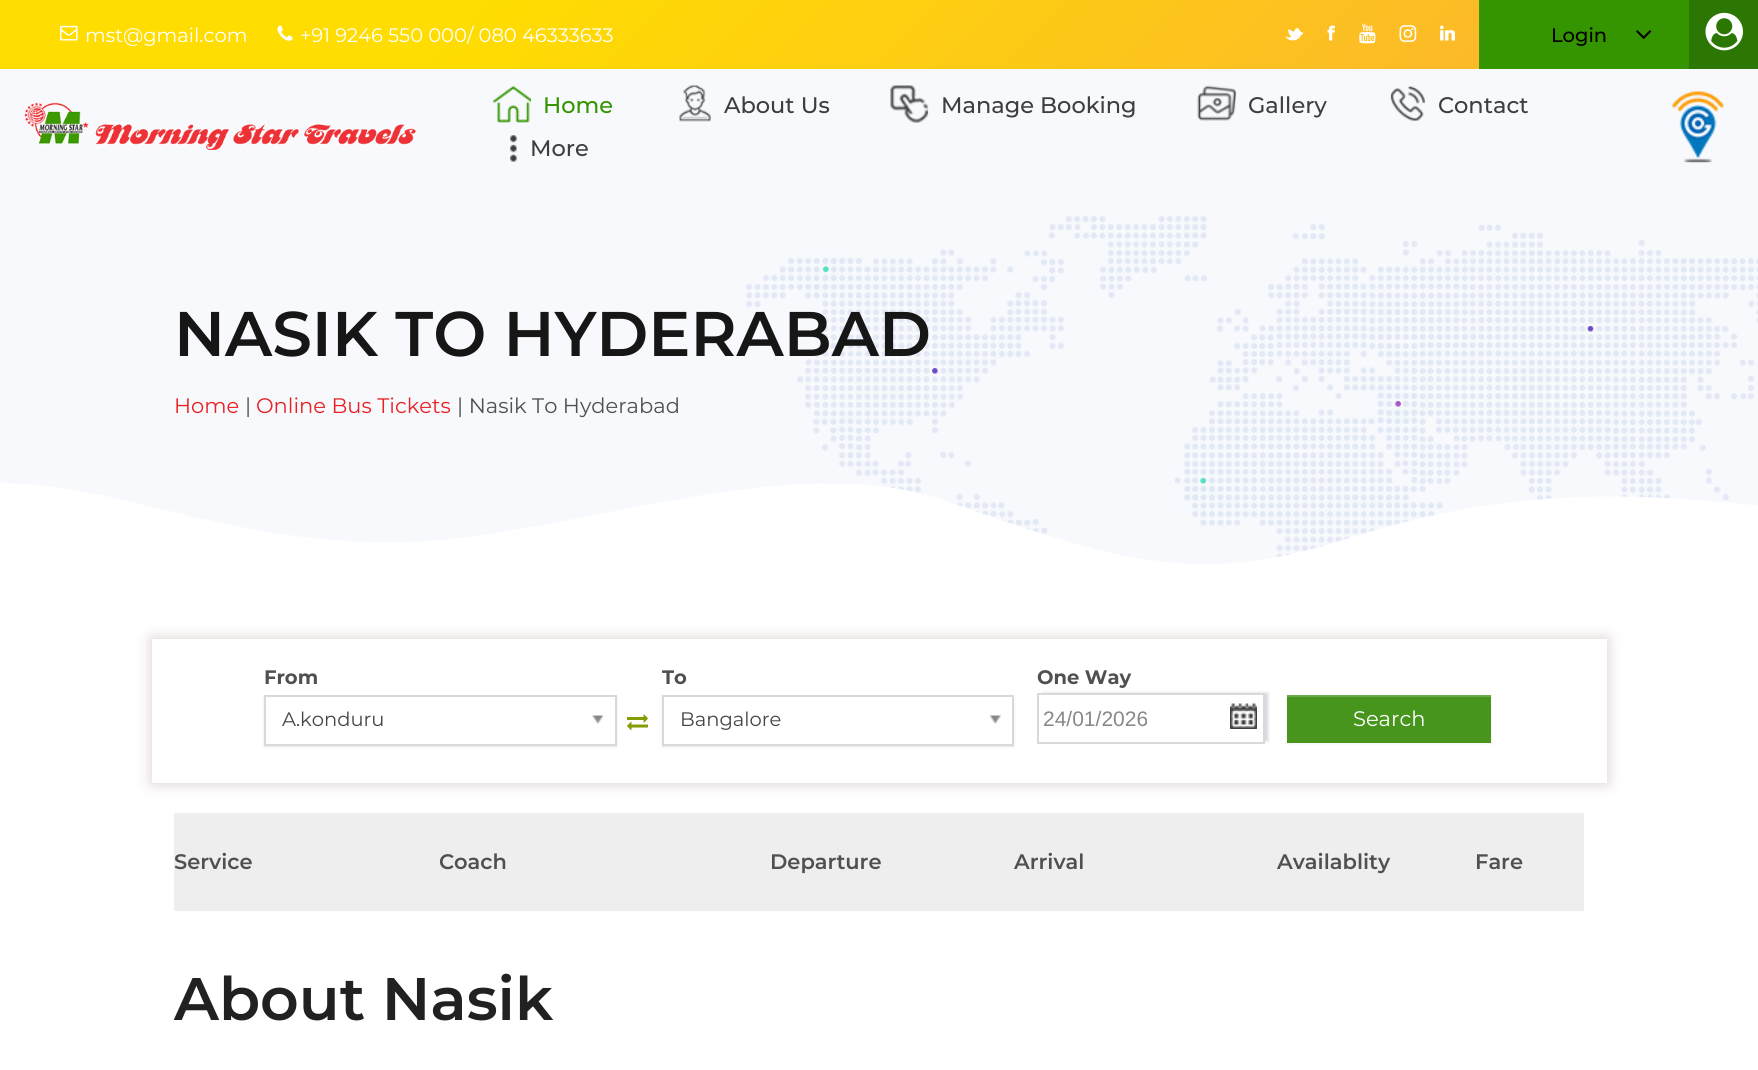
#include <cairo/cairo.h>
#include <math.h>
#include <stddef.h>

static cairo_t *cr;

static void use_color(int r, int g, int b) {
  cairo_set_source_rgb(cr, r / 255.0, g / 255.0, b / 255.0);
}

static void text(double x, double y, const char *s, const char *family, double size, int italic, int bold, int r, int g, int b) {
  cairo_select_font_face(cr, family, italic ? CAIRO_FONT_SLANT_ITALIC : CAIRO_FONT_SLANT_NORMAL,
    bold ? CAIRO_FONT_WEIGHT_BOLD : CAIRO_FONT_WEIGHT_NORMAL);
  cairo_set_font_size(cr, size);
  use_color(r, g, b);
  cairo_move_to(cr, x, y);
  cairo_show_text(cr, s);
}

static void box(double x, double y, double w, double h, int r, int g, int b) {
  use_color(r, g, b);
  cairo_rectangle(cr, x, y, w, h);
  cairo_fill(cr);
}

static void round_rect(double x, double y, double w, double h, double r) {
  cairo_new_sub_path(cr);
  cairo_arc(cr, x + w - r, y + h - r, r, 0, M_PI / 2);
  cairo_arc(cr, x + r, y + h - r, r, M_PI / 2, M_PI);
  cairo_arc(cr, x + r, y + r, r, M_PI, 1.5 * M_PI);
  cairo_arc(cr, x + w - r, y + r, r, 1.5 * M_PI, 2 * M_PI);
  cairo_close_path(cr);
}

static void shadow(double x, double y, double w, double h, double r, double blur, double alpha) {
  cairo_push_group_with_content(cr, CAIRO_CONTENT_ALPHA);
  cairo_set_operator(cr, CAIRO_OPERATOR_SOURCE);
  for (int i = 15; i >= -15 && fmin(w, h) + blur * i / 3 > 0; i -= 2) {
    double e = blur * i / 6;
    cairo_set_source_rgba(cr, 0, 0, 0, alpha * erfc((i - 1) / 8.5) / 2);
    round_rect(x - e, y - e, w + 2 * e, h + 2 * e, fmax(0, fmin(r + e + blur * .6, fmin(w, h) / 2 + e)));
    cairo_fill(cr);
  }
  cairo_pattern_t *soft = cairo_pop_group(cr);
  cairo_mask(cr, soft);
  cairo_pattern_destroy(soft);
}

static void picture(const char *path, double x, double y, double w, double h) {
  cairo_surface_t *image = cairo_image_surface_create_from_png(path);
  cairo_save(cr);
  cairo_set_source_surface(cr, image, x, y);
  cairo_rectangle(cr, x, y, w, h);
  cairo_fill(cr);
  cairo_restore(cr);
  cairo_surface_destroy(image);
}

static void draw(void) {
  cairo_pattern_t *gradient;
  use_color(255, 255, 255);
  cairo_paint(cr);
  gradient = cairo_pattern_create_linear(1336, 491, 422, -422);
  cairo_pattern_add_color_stop_rgba(gradient, 0, 0.984, 0.69, 0.204, 1);
  cairo_pattern_add_color_stop_rgba(gradient, 0.74, 1, 0.867, 0, 1);
  cairo_set_source(cr, gradient);
  cairo_pattern_destroy(gradient);
  cairo_rectangle(cr, 0, 0, 1479, 69);
  cairo_fill(cr);
  picture("img_01.png", 60, 25, 18, 16);
  picture("img_02.png", 277, 25, 16, 16);
  picture("img_03.png", 1285, 28, 18, 13);
  picture("img_04.png", 1327, 25, 8, 16);
  picture("img_05.png", 1359, 23, 17, 21);
  picture("img_06.png", 1399, 25, 18, 17);
  picture("img_07.png", 1440, 25, 15, 16);
  box(1479, 0, 210, 69, 53, 149, 0);
  picture("img_08.png", 1636, 30, 16, 9);
  box(1689, 0, 69, 69, 44, 118, 4);
  picture("img_09.png", 1705, 12, 38, 39);
  box(0, 69, 1758, 120, 247, 249, 253);
  picture("img_10.png", 22, 101, 395, 50);
  picture("img_11.png", 493, 85, 38, 38);
  picture("img_12.png", 679, 85, 32, 37);
  picture("img_13.png", 890, 85, 39, 38);
  picture("img_14.png", 1197, 85, 39, 36);
  picture("img_15.png", 1390, 86, 35, 35);
  picture("img_16.png", 510, 135, 7, 27);
  picture("img_17.png", 1672, 91, 52, 72);
  picture("img_18.png", 0, 189, 1758, 375);
  cairo_save(cr);
  cairo_set_fill_rule(cr, CAIRO_FILL_RULE_EVEN_ODD);
  cairo_new_path(cr);
  cairo_move_to(cr, 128, 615);
  cairo_line_to(cr, 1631, 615);
  cairo_line_to(cr, 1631, 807);
  cairo_line_to(cr, 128, 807);
  cairo_close_path(cr);
  cairo_move_to(cr, 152, 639);
  cairo_line_to(cr, 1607, 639);
  cairo_line_to(cr, 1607, 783);
  cairo_line_to(cr, 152, 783);
  cairo_close_path(cr);
  cairo_clip(cr);
  use_color(218, 205, 205);
  shadow(152, 639, 1455, 144, 0, 7.5, 1);
  cairo_restore(cr);
  use_color(0, 0, 0);
  shadow(264, 696, 353, 51, 0, 1, 0.1);
  use_color(255, 255, 255);
  cairo_rectangle(cr, 265, 696, 351, 49);
  cairo_fill_preserve(cr);
  use_color(217, 217, 217);
  cairo_stroke(cr);
  picture("img_19.png", 592, 715, 12, 9);
  picture("img_20.png", 627, 714, 21, 17);
  use_color(0, 0, 0);
  shadow(662, 696, 352, 51, 0, 1, 0.1);
  use_color(255, 255, 255);
  cairo_rectangle(cr, 663, 696, 350, 49);
  cairo_fill_preserve(cr);
  use_color(217, 217, 217);
  cairo_stroke(cr);
  picture("img_21.png", 989, 715, 12, 9);
  cairo_save(cr);
  cairo_set_fill_rule(cr, CAIRO_FILL_RULE_EVEN_ODD);
  cairo_new_path(cr);
  cairo_move_to(cr, 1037, 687);
  cairo_line_to(cr, 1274, 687);
  cairo_line_to(cr, 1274, 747);
  cairo_line_to(cr, 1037, 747);
  cairo_close_path(cr);
  cairo_move_to(cr, 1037, 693);
  cairo_line_to(cr, 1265, 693);
  cairo_line_to(cr, 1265, 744);
  cairo_line_to(cr, 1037, 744);
  cairo_close_path(cr);
  cairo_clip(cr);
  use_color(211, 214, 221);
  shadow(1043, 693, 225, 48, 0, 1.5, 1);
  cairo_restore(cr);
  picture("img_22.png", 1230, 703, 27, 26);
  cairo_rectangle(cr, 1038, 694, 226, 49);
  cairo_stroke(cr);
  use_color(0, 0, 0);
  shadow(1287, 696, 204, 48, 0, 1.5, 0.05);
  box(1287, 697, 204, 46, 71, 149, 28);
  box(1287, 695, 204, 2, 108, 170, 73);
  box(174, 813, 1410, 98, 238, 238, 238);
  text(85, 42, "mst@gmail.com", "Montserrat", 19.5, 0, 0, 255, 255, 255);
  text(300, 42, "+91 9246 550 000/ 080 46333633", "Montserrat", 19.5, 0, 0, 255, 255, 255);
  text(1551, 42, "Login", "Montserrat Medium", 19.5, 0, 0, 0, 0, 0);
  text(543, 113, "Home", "Montserrat Medium", 22.5, 0, 0, 53, 149, 0);
  text(724, 113, "About Us", "Montserrat Medium", 22.5, 0, 0, 62, 62, 62);
  text(941, 113, "Manage Booking", "Montserrat Medium", 22.5, 0, 0, 62, 62, 62);
  text(1248, 113, "Gallery", "Montserrat Medium", 22.5, 0, 0, 62, 62, 62);
  text(1438, 113, "Contact", "Montserrat Medium", 22.5, 0, 0, 62, 62, 62);
  text(530, 156, "More", "Montserrat Medium", 22.5, 0, 0, 62, 62, 62);
  text(174, 356, "NASIK TO HYDERABAD", "Montserrat SemiBold", 63, 0, 0, 22, 22, 22);
  text(174, 413, "Home", "Montserrat", 21, 0, 0, 230, 34, 37);
  text(245, 413, "|", "Montserrat", 21, 0, 0, 80, 80, 80);
  text(256, 413, "Online Bus Tickets", "Montserrat", 21, 0, 0, 230, 34, 37);
  text(457, 413, "| Nasik To Hyderabad", "Montserrat", 21, 0, 0, 80, 80, 80);
  text(264, 684, "From", "Montserrat", 19.5, 0, 1, 80, 80, 80);
  text(282, 726, "A.konduru", "Montserrat", 19.5, 0, 0, 68, 68, 68);
  text(662, 684, "To", "Montserrat", 19.5, 0, 1, 80, 80, 80);
  text(680, 726, "Bangalore", "Montserrat", 19.5, 0, 0, 68, 68, 68);
  text(1037, 684, "One Way", "Montserrat", 19.5, 0, 1, 80, 80, 80);
  text(1043, 726, "24/01/2026", "Liberation Sans", 21, 0, 0, 136, 136, 136);
  text(1353, 726, "Search", "Montserrat", 21, 0, 0, 255, 255, 255);
  text(174, 869, "Service", "Montserrat SemiBold", 21, 0, 0, 80, 80, 80);
  text(439, 869, "Coach", "Montserrat SemiBold", 21, 0, 0, 80, 80, 80);
  text(770, 869, "Departure", "Montserrat SemiBold", 21, 0, 0, 80, 80, 80);
  text(1014, 869, "Arrival", "Montserrat SemiBold", 21, 0, 0, 80, 80, 80);
  text(1277, 869, "Availablity", "Montserrat SemiBold", 21, 0, 0, 80, 80, 80);
  text(1475, 869, "Fare", "Montserrat SemiBold", 21, 0, 0, 80, 80, 80);
  text(174, 1020, "About Nasik", "Montserrat SemiBold", 60, 0, 0, 33, 33, 33);
}

int main(void) {
  cairo_surface_t *surface = cairo_image_surface_create(CAIRO_FORMAT_RGB24, 1758, 1070);
  cr = cairo_create(surface);
  cairo_font_options_t *options = cairo_font_options_create();
  cairo_font_options_set_hint_metrics(options, CAIRO_HINT_METRICS_OFF);
  cairo_font_options_set_hint_style(options, CAIRO_HINT_STYLE_NONE);
  cairo_set_font_options(cr, options);
  cairo_set_miter_limit(cr, 4);
  draw();
  cairo_surface_write_to_png(surface, "out.png");
  cairo_font_options_destroy(options);
  cairo_destroy(cr);
  cairo_surface_destroy(surface);
  return 0;
}
